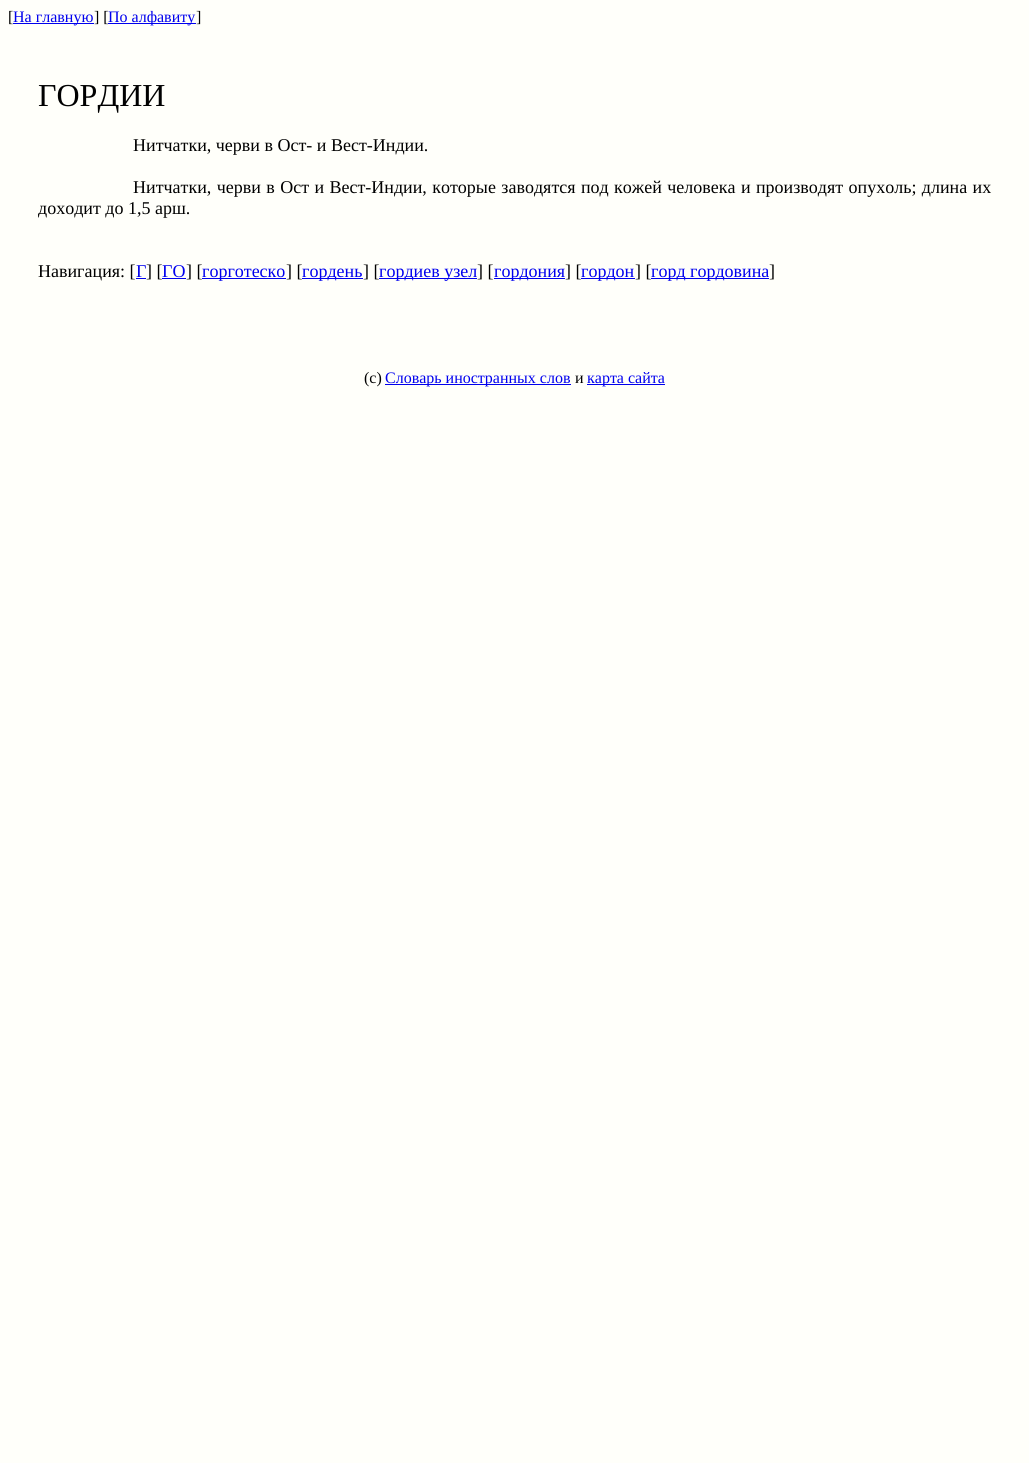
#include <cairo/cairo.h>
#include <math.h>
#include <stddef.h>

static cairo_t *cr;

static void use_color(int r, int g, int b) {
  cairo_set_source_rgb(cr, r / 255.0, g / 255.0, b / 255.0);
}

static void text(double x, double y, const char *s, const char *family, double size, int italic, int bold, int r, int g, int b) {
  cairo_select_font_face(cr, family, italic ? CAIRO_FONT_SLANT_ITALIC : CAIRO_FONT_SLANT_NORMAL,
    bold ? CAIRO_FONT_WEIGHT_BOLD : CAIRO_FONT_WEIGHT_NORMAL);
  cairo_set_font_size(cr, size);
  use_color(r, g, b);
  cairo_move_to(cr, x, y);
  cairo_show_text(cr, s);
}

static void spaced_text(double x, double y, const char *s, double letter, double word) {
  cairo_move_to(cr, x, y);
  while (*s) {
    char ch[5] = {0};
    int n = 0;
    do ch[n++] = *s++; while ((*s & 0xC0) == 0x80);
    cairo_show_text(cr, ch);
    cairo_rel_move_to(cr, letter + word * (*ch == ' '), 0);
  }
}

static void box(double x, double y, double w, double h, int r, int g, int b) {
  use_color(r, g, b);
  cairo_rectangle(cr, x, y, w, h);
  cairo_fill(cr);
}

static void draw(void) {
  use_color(255, 255, 250);
  cairo_paint(cr);
  box(13, 23, 81, 1, 0, 0, 238);
  box(108, 23, 88, 1, 0, 0, 238);
  box(136, 278, 10, 1, 0, 0, 238);
  box(162, 278, 24, 1, 0, 0, 238);
  box(202, 278, 84, 1, 0, 0, 238);
  box(302, 278, 61, 1, 0, 0, 238);
  box(379, 278, 98, 1, 0, 0, 238);
  box(494, 278, 71, 1, 0, 0, 238);
  box(581, 278, 54, 1, 0, 0, 238);
  box(651, 278, 118, 1, 0, 0, 238);
  box(385, 384, 186, 1, 0, 0, 238);
  box(587, 384, 78, 1, 0, 0, 238);
  text(8, 22, "[", "Liberation Serif", 16, 0, 0, 0, 0, 0);
  text(13, 22, "На главную", "Liberation Serif", 16, 0, 0, 0, 0, 238);
  text(94, 22, "] [", "Liberation Serif", 16, 0, 0, 0, 0, 0);
  text(108, 22, "По алфавиту", "Liberation Serif", 16, 0, 0, 0, 0, 238);
  text(196, 22, "]", "Liberation Serif", 16, 0, 0, 0, 0, 0);
  text(38, 106, "ГОРДИИ", "Liberation Serif", 32, 0, 0, 0, 0, 0);
  text(133, 151, "Нитчатки, черви в Ост- и Вест-Индии.", "Liberation Serif", 18, 0, 0, 0, 0, 0);
  spaced_text(133, 193, "Нитчатки, черви в Ост и Вест-Индии, которые заводятся под кожей человека и производят опухоль; длина их", 0, 0.9);
  text(38, 214, "доходит до 1,5 арш.", "Liberation Serif", 18, 0, 0, 0, 0, 0);
  text(38, 277, "Навигация: [", "Liberation Serif", 18, 0, 0, 0, 0, 0);
  text(136, 277, "Г", "Liberation Serif", 18, 0, 0, 0, 0, 238);
  text(146, 277, "] [", "Liberation Serif", 18, 0, 0, 0, 0, 0);
  text(162, 277, "ГО", "Liberation Serif", 18, 0, 0, 0, 0, 238);
  text(186, 277, "] [", "Liberation Serif", 18, 0, 0, 0, 0, 0);
  text(202, 277, "горготеско", "Liberation Serif", 18, 0, 0, 0, 0, 238);
  text(286, 277, "] [", "Liberation Serif", 18, 0, 0, 0, 0, 0);
  text(302, 277, "гордень", "Liberation Serif", 18, 0, 0, 0, 0, 238);
  text(363, 277, "] [", "Liberation Serif", 18, 0, 0, 0, 0, 0);
  text(379, 277, "гордиев узел", "Liberation Serif", 18, 0, 0, 0, 0, 238);
  text(477, 277, "] [", "Liberation Serif", 18, 0, 0, 0, 0, 0);
  text(494, 277, "гордония", "Liberation Serif", 18, 0, 0, 0, 0, 238);
  text(565, 277, "] [", "Liberation Serif", 18, 0, 0, 0, 0, 0);
  text(581, 277, "гордон", "Liberation Serif", 18, 0, 0, 0, 0, 238);
  text(635, 277, "] [", "Liberation Serif", 18, 0, 0, 0, 0, 0);
  text(651, 277, "горд гордовина", "Liberation Serif", 18, 0, 0, 0, 0, 238);
  text(769, 277, "]", "Liberation Serif", 18, 0, 0, 0, 0, 0);
  text(364, 383, "(c)", "Liberation Serif", 16, 0, 0, 0, 0, 0);
  text(385, 383, "Словарь иностранных слов", "Liberation Serif", 16, 0, 0, 0, 0, 238);
  text(575, 383, "и", "Liberation Serif", 16, 0, 0, 0, 0, 0);
  text(587, 383, "карта сайта", "Liberation Serif", 16, 0, 0, 0, 0, 238);
}

int main(void) {
  cairo_surface_t *surface = cairo_image_surface_create(CAIRO_FORMAT_RGB24, 1029, 1463);
  cr = cairo_create(surface);
  cairo_font_options_t *options = cairo_font_options_create();
  cairo_font_options_set_hint_metrics(options, CAIRO_HINT_METRICS_OFF);
  cairo_font_options_set_hint_style(options, CAIRO_HINT_STYLE_NONE);
  cairo_set_font_options(cr, options);
  cairo_set_miter_limit(cr, 4);
  draw();
  cairo_surface_write_to_png(surface, "out.png");
  cairo_font_options_destroy(options);
  cairo_destroy(cr);
  cairo_surface_destroy(surface);
  return 0;
}
